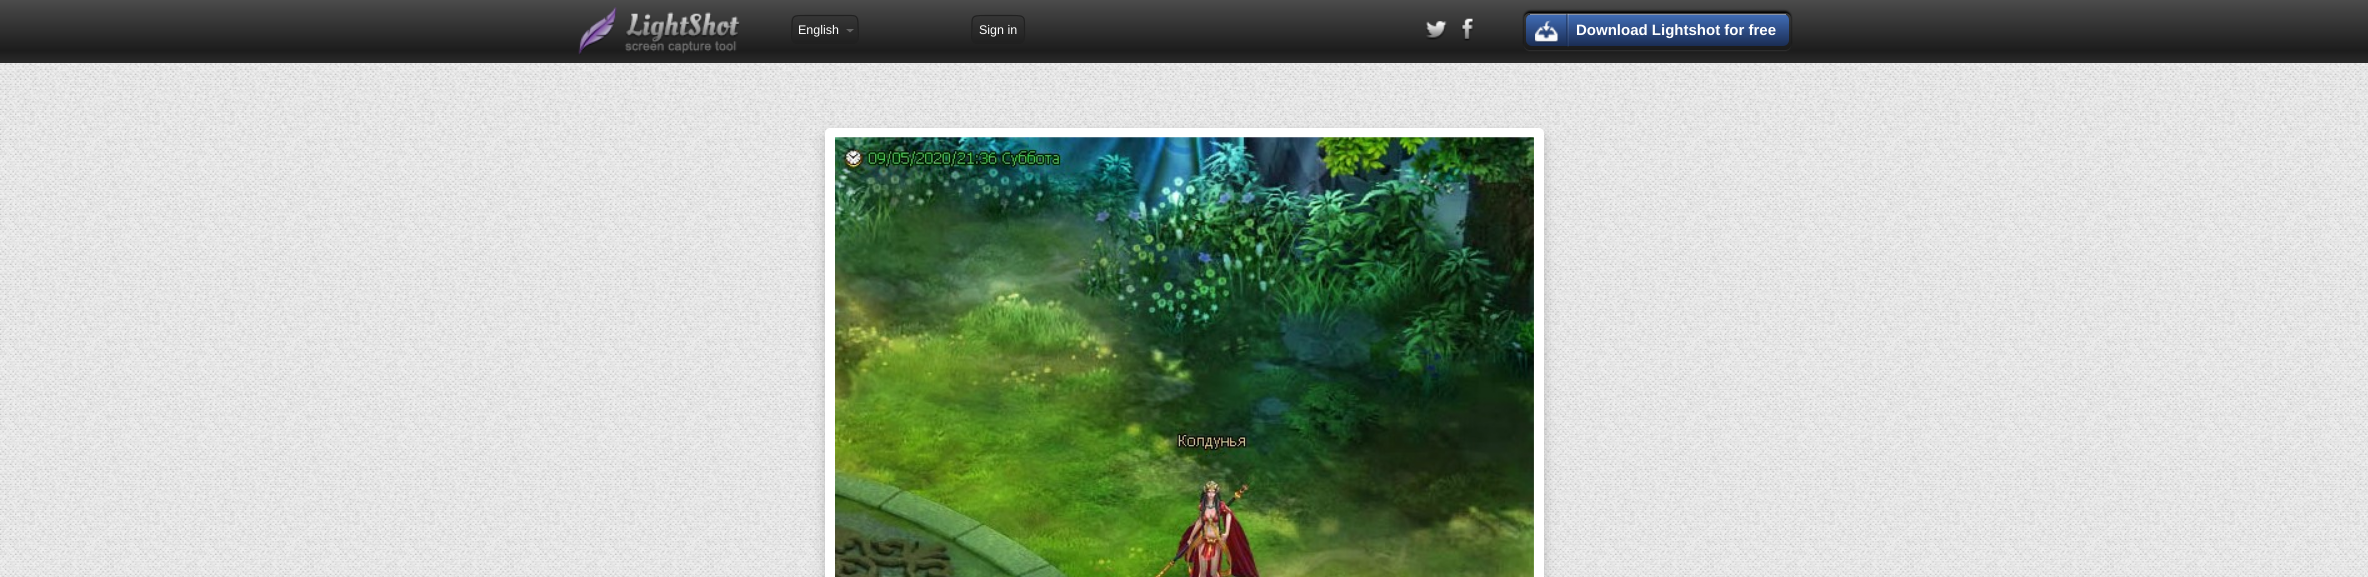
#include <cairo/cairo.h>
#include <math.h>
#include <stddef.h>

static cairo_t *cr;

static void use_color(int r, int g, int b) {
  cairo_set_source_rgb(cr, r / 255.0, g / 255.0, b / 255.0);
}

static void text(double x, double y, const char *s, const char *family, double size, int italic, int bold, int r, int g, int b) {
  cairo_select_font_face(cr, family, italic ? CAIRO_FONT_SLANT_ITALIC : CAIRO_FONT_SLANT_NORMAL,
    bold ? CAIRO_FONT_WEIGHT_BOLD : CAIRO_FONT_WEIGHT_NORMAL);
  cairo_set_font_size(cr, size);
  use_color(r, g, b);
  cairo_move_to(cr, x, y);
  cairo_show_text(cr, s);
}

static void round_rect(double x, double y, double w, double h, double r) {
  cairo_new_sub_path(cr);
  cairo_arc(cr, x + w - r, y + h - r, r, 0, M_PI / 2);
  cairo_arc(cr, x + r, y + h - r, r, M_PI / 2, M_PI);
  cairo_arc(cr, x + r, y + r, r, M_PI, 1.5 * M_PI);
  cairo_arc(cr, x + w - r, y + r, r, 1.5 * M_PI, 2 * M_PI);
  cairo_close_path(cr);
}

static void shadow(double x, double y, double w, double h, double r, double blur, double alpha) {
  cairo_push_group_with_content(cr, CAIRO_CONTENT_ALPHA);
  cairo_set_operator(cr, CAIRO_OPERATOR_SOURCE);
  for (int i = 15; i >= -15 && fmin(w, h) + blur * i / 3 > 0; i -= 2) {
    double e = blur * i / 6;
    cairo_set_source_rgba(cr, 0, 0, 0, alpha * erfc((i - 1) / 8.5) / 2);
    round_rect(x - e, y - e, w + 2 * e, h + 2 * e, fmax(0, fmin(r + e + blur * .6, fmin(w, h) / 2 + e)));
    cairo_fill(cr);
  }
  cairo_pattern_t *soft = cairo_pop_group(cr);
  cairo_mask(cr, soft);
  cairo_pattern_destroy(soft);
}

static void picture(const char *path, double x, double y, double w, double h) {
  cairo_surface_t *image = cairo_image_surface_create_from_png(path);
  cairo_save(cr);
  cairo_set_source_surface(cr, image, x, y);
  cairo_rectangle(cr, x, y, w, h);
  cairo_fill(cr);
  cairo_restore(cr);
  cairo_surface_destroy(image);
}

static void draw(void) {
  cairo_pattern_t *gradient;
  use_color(255, 255, 255);
  cairo_paint(cr);
  picture("img_01.png", 0, 63, 2368, 514);
  gradient = cairo_pattern_create_linear(1184, 0, 1184, 63);
  cairo_pattern_add_color_stop_rgba(gradient, 0, 0.294, 0.294, 0.294, 1);
  cairo_pattern_add_color_stop_rgba(gradient, 0.8, 0.11, 0.11, 0.11, 1);
  cairo_pattern_add_color_stop_rgba(gradient, 1, 0.165, 0.165, 0.165, 1);
  cairo_set_source(cr, gradient);
  cairo_pattern_destroy(gradient);
  cairo_rectangle(cr, 0, 0, 2368, 63);
  cairo_fill(cr);
  picture("img_02.png", 578, 7, 162, 48);
  cairo_set_source_rgba(cr, 0, 0, 0, 0.1);
  round_rect(791, 15, 68, 29, 6);
  cairo_fill(cr);
  cairo_new_path(cr);
  cairo_move_to(cr, 793.5, 41.5);
  cairo_curve_to(cr, 790.5, 38.5, 792, 33, 792, 29.5);
  cairo_curve_to(cr, 792, 15, 792, 15.5, 806.5, 15.5);
  cairo_line_to(cr, 843.5, 15.5);
  cairo_curve_to(cr, 856, 15.5, 858, 14, 858, 26.5);
  cairo_curve_to(cr, 858, 30.5, 859.5, 38.5, 856.5, 41.5);
  use_color(33, 33, 33);
  cairo_set_line_width(cr, 1.2);
  cairo_stroke(cr);
  use_color(102, 102, 102);
  cairo_new_path(cr);
  cairo_move_to(cr, 846, 29);
  cairo_line_to(cr, 854, 29);
  cairo_line_to(cr, 850, 32.5);
  cairo_close_path(cr);
  cairo_fill(cr);
  cairo_set_source_rgba(cr, 0, 0, 0, 0.1);
  round_rect(971, 15, 54, 29, 6);
  cairo_fill(cr);
  cairo_new_path(cr);
  cairo_move_to(cr, 973.5, 41.5);
  cairo_curve_to(cr, 970.5, 38.5, 972, 33, 972, 29.5);
  cairo_curve_to(cr, 972, 16.5, 971, 15.5, 984.5, 15.5);
  cairo_line_to(cr, 1012, 15.5);
  cairo_curve_to(cr, 1025.5, 15.5, 1024.5, 16.5, 1024.5, 29.5);
  cairo_curve_to(cr, 1024.5, 33, 1025.5, 38.5, 1022.5, 41.5);
  use_color(33, 33, 33);
  cairo_stroke(cr);
  picture("img_03.png", 1426, 21, 21, 19);
  picture("img_04.png", 1461, 18, 13, 23);
  cairo_save(cr);
  cairo_set_fill_rule(cr, CAIRO_FILL_RULE_EVEN_ODD);
  cairo_new_path(cr);
  cairo_move_to(cr, 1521, 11);
  cairo_line_to(cr, 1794, 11);
  cairo_line_to(cr, 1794, 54);
  cairo_line_to(cr, 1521, 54);
  cairo_close_path(cr);
  cairo_move_to(cr, 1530, 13);
  cairo_line_to(cr, 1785, 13);
  cairo_curve_to(cr, 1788.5, 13, 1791, 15.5, 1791, 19);
  cairo_line_to(cr, 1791, 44);
  cairo_curve_to(cr, 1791, 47.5, 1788.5, 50, 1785, 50);
  cairo_line_to(cr, 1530, 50);
  cairo_curve_to(cr, 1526.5, 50, 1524, 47.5, 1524, 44);
  cairo_line_to(cr, 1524, 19);
  cairo_curve_to(cr, 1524, 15.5, 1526.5, 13, 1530, 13);
  cairo_close_path(cr);
  cairo_clip(cr);
  use_color(255, 255, 255);
  shadow(1524, 14, 267, 37, 6, 0.5, 0.1);
  cairo_restore(cr);
  cairo_save(cr);
  cairo_set_fill_rule(cr, CAIRO_FILL_RULE_EVEN_ODD);
  cairo_new_path(cr);
  cairo_move_to(cr, 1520, 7);
  cairo_line_to(cr, 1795, 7);
  cairo_line_to(cr, 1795, 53);
  cairo_line_to(cr, 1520, 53);
  cairo_close_path(cr);
  cairo_move_to(cr, 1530, 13);
  cairo_line_to(cr, 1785, 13);
  cairo_curve_to(cr, 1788.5, 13, 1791, 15.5, 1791, 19);
  cairo_line_to(cr, 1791, 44);
  cairo_curve_to(cr, 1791, 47.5, 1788.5, 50, 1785, 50);
  cairo_line_to(cr, 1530, 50);
  cairo_curve_to(cr, 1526.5, 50, 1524, 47.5, 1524, 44);
  cairo_line_to(cr, 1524, 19);
  cairo_curve_to(cr, 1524, 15.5, 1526.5, 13, 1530, 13);
  cairo_close_path(cr);
  cairo_clip(cr);
  use_color(0, 0, 0);
  shadow(1524, 11, 267, 38, 6, 1, 0.99);
  cairo_restore(cr);
  cairo_set_source_rgba(cr, 0, 0, 0, 0.11);
  round_rect(1524, 13, 267, 37, 6);
  cairo_fill(cr);
  cairo_save(cr);
  round_rect(1526, 14, 263, 32, 6);
  cairo_clip(cr);
  gradient = cairo_pattern_create_linear(1658, -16, 1658, 15);
  cairo_pattern_add_color_stop_rgba(gradient, 0, 0.251, 0.424, 0.714, 1);
  cairo_pattern_add_color_stop_rgba(gradient, 1, 0.106, 0.176, 0.329, 1);
  cairo_set_source(cr, gradient);
  cairo_pattern_destroy(gradient);
  cairo_rectangle(cr, 1526, 14, 263, 1);
  cairo_fill(cr);
  gradient = cairo_pattern_create_linear(1658, 15, 1658, 46);
  cairo_pattern_add_color_stop_rgba(gradient, 0, 0.251, 0.427, 0.722, 0.98);
  cairo_pattern_add_color_stop_rgba(gradient, 1, 0.102, 0.176, 0.329, 0.98);
  cairo_set_source(cr, gradient);
  cairo_pattern_destroy(gradient);
  cairo_new_path(cr);
  cairo_move_to(cr, 1526, 15);
  cairo_line_to(cr, 1789, 15);
  cairo_line_to(cr, 1789, 40);
  cairo_curve_to(cr, 1789, 43.5, 1786.5, 46, 1783, 46);
  cairo_line_to(cr, 1532, 46);
  cairo_curve_to(cr, 1528.5, 46, 1526, 43.5, 1526, 40);
  cairo_close_path(cr);
  cairo_fill(cr);
  cairo_restore(cr);
  cairo_set_source_rgba(cr, 0.984, 0.984, 0.984, 0.5);
  cairo_rectangle(cr, 1530, 14, 256, 1);
  cairo_fill(cr);
  picture("img_05.png", 1535, 20, 24, 23);
  picture("img_06.png", 1566, 13, 3, 34);
  use_color(0, 0, 0);
  shadow(825, 134, 719, 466, 5, 6, 0.2);
  use_color(255, 255, 255);
  round_rect(825, 128, 719, 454, 5);
  cairo_fill(cr);
  picture("img_07.png", 835, 137, 699, 440);
  picture("img_08.png", 835, 137, 699, 440);
  text(798, 34, "English", "Liberation Sans", 12.5, 0, 0, 255, 255, 255);
  text(979, 34, "Sign in", "Liberation Sans", 12.5, 0, 0, 255, 255, 255);
  text(1576, 35, "Download Lightshot for free", "Liberation Sans", 15, 0, 1, 255, 255, 255);
}

int main(void) {
  cairo_surface_t *surface = cairo_image_surface_create(CAIRO_FORMAT_RGB24, 2368, 577);
  cr = cairo_create(surface);
  cairo_font_options_t *options = cairo_font_options_create();
  cairo_font_options_set_hint_metrics(options, CAIRO_HINT_METRICS_OFF);
  cairo_font_options_set_hint_style(options, CAIRO_HINT_STYLE_NONE);
  cairo_set_font_options(cr, options);
  cairo_set_miter_limit(cr, 4);
  draw();
  cairo_surface_write_to_png(surface, "out.png");
  cairo_font_options_destroy(options);
  cairo_destroy(cr);
  cairo_surface_destroy(surface);
  return 0;
}
